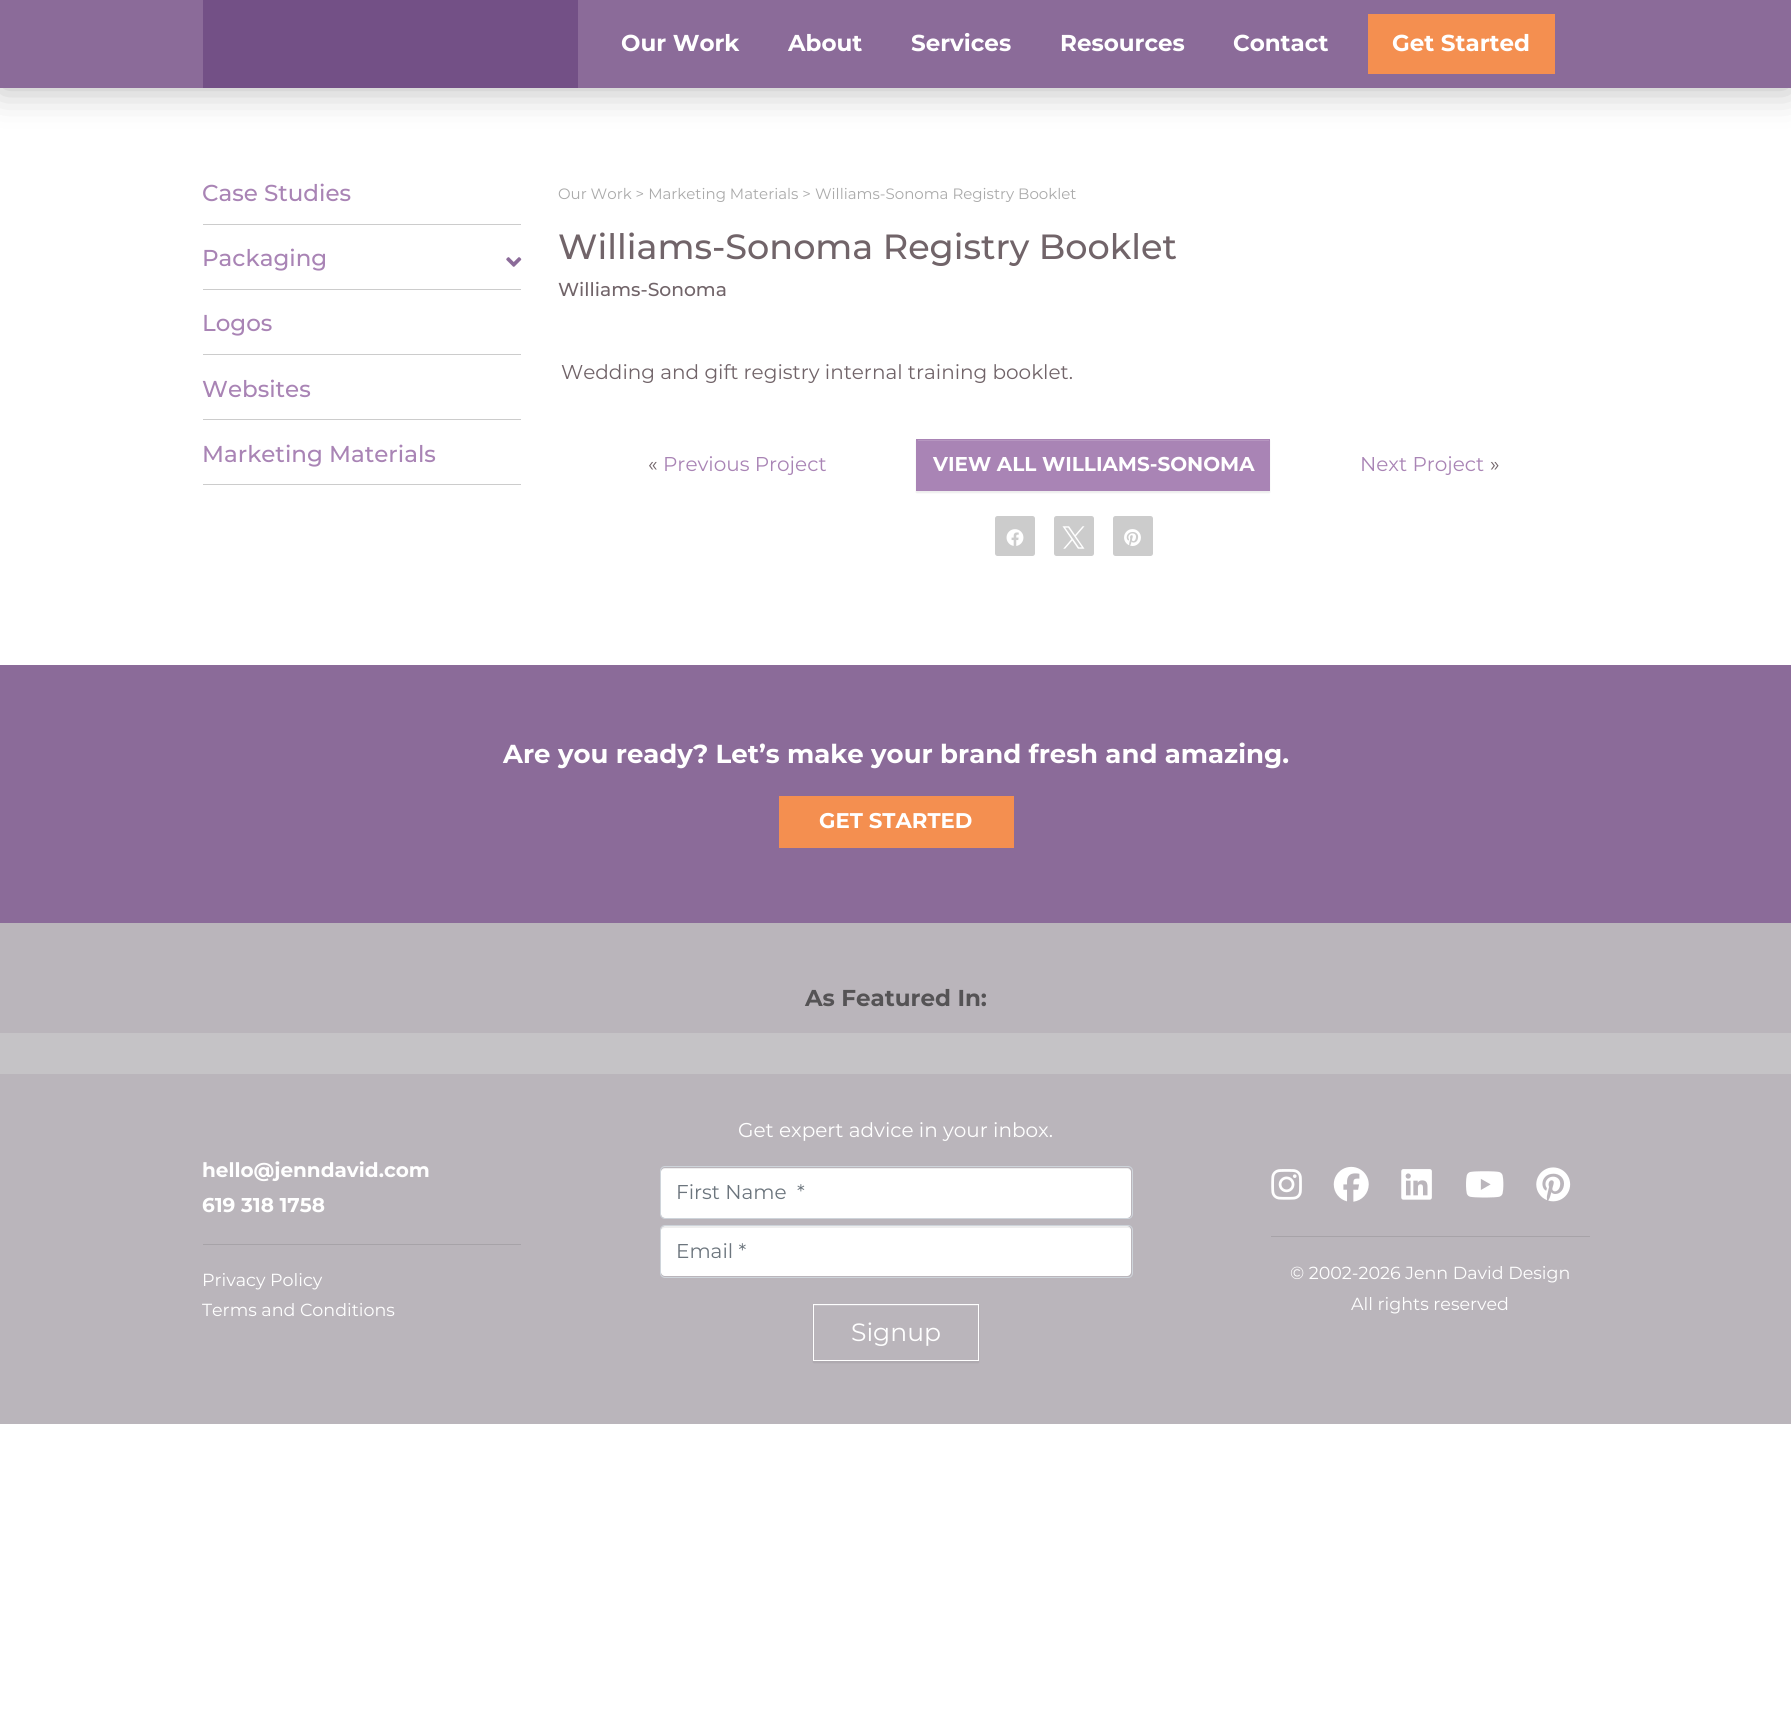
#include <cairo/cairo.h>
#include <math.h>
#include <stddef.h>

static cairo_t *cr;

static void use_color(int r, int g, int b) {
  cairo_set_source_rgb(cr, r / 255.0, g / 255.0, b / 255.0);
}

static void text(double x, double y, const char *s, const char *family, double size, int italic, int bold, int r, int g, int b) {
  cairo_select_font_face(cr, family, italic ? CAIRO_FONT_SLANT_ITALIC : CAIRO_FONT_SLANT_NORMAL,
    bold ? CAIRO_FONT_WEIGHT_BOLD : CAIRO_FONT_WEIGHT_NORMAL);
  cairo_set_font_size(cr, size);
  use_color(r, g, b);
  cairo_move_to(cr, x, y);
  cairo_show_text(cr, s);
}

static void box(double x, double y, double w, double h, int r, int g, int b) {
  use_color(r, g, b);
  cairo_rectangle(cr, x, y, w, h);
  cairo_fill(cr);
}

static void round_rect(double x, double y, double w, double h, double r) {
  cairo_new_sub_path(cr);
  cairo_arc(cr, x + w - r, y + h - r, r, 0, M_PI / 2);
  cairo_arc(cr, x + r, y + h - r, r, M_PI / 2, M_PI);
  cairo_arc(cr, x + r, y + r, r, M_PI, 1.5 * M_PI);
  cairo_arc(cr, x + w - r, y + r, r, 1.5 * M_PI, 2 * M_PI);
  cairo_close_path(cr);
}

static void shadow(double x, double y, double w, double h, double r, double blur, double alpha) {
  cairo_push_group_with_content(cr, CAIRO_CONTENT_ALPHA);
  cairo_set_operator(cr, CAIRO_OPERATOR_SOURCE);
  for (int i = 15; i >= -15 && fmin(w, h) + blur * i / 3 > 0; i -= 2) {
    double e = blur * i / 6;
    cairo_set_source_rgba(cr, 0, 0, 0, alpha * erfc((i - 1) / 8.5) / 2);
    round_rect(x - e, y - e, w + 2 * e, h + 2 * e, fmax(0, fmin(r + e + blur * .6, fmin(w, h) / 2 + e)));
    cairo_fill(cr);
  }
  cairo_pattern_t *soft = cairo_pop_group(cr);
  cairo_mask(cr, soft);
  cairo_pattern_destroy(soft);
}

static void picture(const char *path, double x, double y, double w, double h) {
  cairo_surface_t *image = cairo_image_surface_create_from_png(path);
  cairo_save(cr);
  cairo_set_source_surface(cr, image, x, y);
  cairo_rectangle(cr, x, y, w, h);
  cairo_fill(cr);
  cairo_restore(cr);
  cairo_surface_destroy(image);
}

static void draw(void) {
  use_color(255, 255, 255);
  cairo_paint(cr);
  use_color(0, 0, 0);
  shadow(0, 0, 1791, 88, 0, 19, 0.3);
  box(0, 0, 1791, 88, 139, 107, 153);
  box(203, 0, 375, 88, 115, 80, 134);
  box(1368, 14, 187, 60, 244, 143, 80);
  box(203, 224, 318, 1, 204, 204, 204);
  box(203, 289, 318, 1, 204, 204, 204);
  picture("img_01.png", 506, 257, 16, 10);
  box(203, 354, 318, 1, 204, 204, 204);
  box(203, 419, 318, 1, 204, 204, 204);
  box(203, 484, 318, 1, 204, 204, 204);
  use_color(0, 0, 0);
  shadow(916, 440, 354, 53, 0, 0.5, 0.07);
  box(916, 439, 354, 52, 169, 132, 181);
  box(918, 440, 351, 1, 182, 150, 192);
  use_color(204, 204, 204);
  round_rect(995, 516, 40, 40, 2.5);
  cairo_fill(cr);
  picture("img_02.png", 1006, 529, 18, 17);
  round_rect(1054, 516, 40, 40, 2.5);
  cairo_fill(cr);
  picture("img_03.png", 1062, 526, 23, 23);
  round_rect(1113, 516, 40, 40, 2.5);
  cairo_fill(cr);
  picture("img_04.png", 1124, 529, 17, 17);
  box(0, 665, 1791, 258, 139, 107, 153);
  box(779, 796, 235, 52, 244, 143, 80);
  box(0, 923, 1791, 501, 186, 181, 187);
  box(0, 1033, 1791, 41, 197, 195, 198);
  box(203, 1244, 318, 1, 167, 163, 168);
  use_color(255, 255, 255);
  round_rect(661, 1168, 470, 50, 4);
  cairo_fill(cr);
  cairo_set_source_rgba(cr, 0, 0, 0, 0.07);
  cairo_new_path(cr);
  cairo_move_to(cr, 665, 1169);
  cairo_line_to(cr, 1128, 1169);
  cairo_line_to(cr, 1130, 1170);
  cairo_curve_to(cr, 1130, 1169, 1128, 1168, 1127, 1168);
  cairo_line_to(cr, 665, 1168);
  cairo_curve_to(cr, 663, 1168, 661, 1170, 661, 1172);
  cairo_curve_to(cr, 661, 1170, 663, 1169, 665, 1169);
  cairo_close_path(cr);
  cairo_fill(cr);
  round_rect(660.5, 1166.5, 472, 52, 4.5);
  use_color(206, 212, 218);
  cairo_set_line_width(cr, 1);
  cairo_stroke(cr);
  use_color(255, 255, 255);
  round_rect(661, 1226, 470, 50, 4);
  cairo_fill(cr);
  cairo_set_source_rgba(cr, 0, 0, 0, 0.07);
  cairo_new_path(cr);
  cairo_move_to(cr, 665, 1228);
  cairo_line_to(cr, 1128, 1228);
  cairo_curve_to(cr, 1130, 1228, 1131, 1229, 1131, 1231);
  cairo_curve_to(cr, 1131, 1228, 1130, 1226, 1127, 1226);
  cairo_line_to(cr, 665, 1226);
  cairo_curve_to(cr, 662, 1226, 661, 1228, 661, 1231);
  cairo_curve_to(cr, 661, 1229, 663, 1228, 665, 1228);
  cairo_close_path(cr);
  cairo_fill(cr);
  round_rect(660.5, 1225.5, 472, 52, 4.5);
  use_color(206, 212, 218);
  cairo_stroke(cr);
  use_color(0, 0, 0);
  shadow(813, 1305, 166, 58, 0, 0.5, 0.07);
  box(814, 1306, 164, 54, 186, 181, 187);
  box(814, 1305, 164, 1, 196, 192, 197);
  cairo_rectangle(cr, 813.5, 1304.5, 165, 56);
  use_color(255, 255, 255);
  cairo_stroke(cr);
  picture("img_05.png", 1271, 1169, 31, 31);
  picture("img_06.png", 1333, 1166, 36, 36);
  picture("img_07.png", 1401, 1169, 31, 31);
  picture("img_08.png", 1466, 1171, 38, 27);
  picture("img_09.png", 1536, 1167, 35, 35);
  box(1271, 1236, 319, 1, 167, 163, 168);
  text(621, 51, "Our Work", "Montserrat", 23, 0, 1, 255, 255, 255);
  text(788, 51, "About", "Montserrat", 23, 0, 1, 255, 255, 255);
  text(911, 51, "Services", "Montserrat", 23, 0, 1, 255, 255, 255);
  text(1060, 51, "Resources", "Montserrat", 23, 0, 1, 255, 255, 255);
  text(1233, 51, "Contact", "Montserrat", 23, 0, 1, 255, 255, 255);
  text(1392, 51, "Get Started", "Montserrat", 23, 0, 1, 255, 255, 255);
  text(202, 201, "Case Studies", "Montserrat Medium", 23, 0, 0, 169, 132, 181);
  text(202, 266, "Packaging", "Montserrat Medium", 23, 0, 0, 169, 132, 181);
  text(202, 331, "Logos", "Montserrat Medium", 23, 0, 0, 169, 132, 181);
  text(202, 397, "Websites", "Montserrat Medium", 23, 0, 0, 169, 132, 181);
  text(202, 462, "Marketing Materials", "Montserrat Medium", 23, 0, 0, 169, 132, 181);
  text(558, 199, "Our Work > Marketing Materials > Williams-Sonoma Registry Booklet", "Montserrat", 15, 0, 0, 170, 170, 170);
  text(558, 259, "Williams-Sonoma Registry Booklet", "Montserrat Medium", 35, 0, 0, 113, 100, 105);
  text(558, 296, "Williams-Sonoma", "Montserrat Medium", 18.75, 0, 0, 113, 100, 105);
  text(561, 379, "Wedding and gift registry internal training booklet.", "Montserrat", 20, 0, 0, 113, 100, 105);
  text(648, 471, "«", "Montserrat", 20, 0, 0, 113, 100, 105);
  text(663, 471, "Previous Project", "Montserrat", 20, 0, 0, 169, 132, 181);
  text(933, 471, "VIEW ALL WILLIAMS-SONOMA", "Montserrat", 20, 0, 1, 255, 255, 255);
  text(1360, 471, "Next Project", "Montserrat", 20, 0, 0, 169, 132, 181);
  text(1490, 471, "»", "Montserrat", 20, 0, 0, 113, 100, 105);
  text(503, 763, "Are you ready? Let’s make your brand fresh and amazing.", "Montserrat", 26, 0, 1, 255, 255, 255);
  text(819, 828, "GET STARTED", "Montserrat", 21.25, 0, 1, 255, 255, 255);
  text(805, 1006, "As Featured In:", "Montserrat", 23, 0, 1, 85, 83, 85);
  text(202, 1177, "hello@jenndavid.com", "Montserrat", 20, 0, 1, 255, 255, 255);
  text(202, 1212, "619 318 1758", "Montserrat", 20, 0, 1, 255, 255, 255);
  text(202, 1286, "Privacy Policy", "Montserrat", 17.5, 0, 0, 255, 255, 255);
  text(202, 1316, "Terms and Conditions", "Montserrat", 17.5, 0, 0, 255, 255, 255);
  text(738, 1137, "Get expert advice in your inbox.", "Montserrat", 20, 0, 0, 255, 255, 255);
  text(676, 1199, "First Name  *", "Montserrat", 20, 0, 0, 108, 117, 125);
  text(676, 1258, "Email *", "Montserrat", 20, 0, 0, 108, 117, 125);
  text(851, 1341, "Signup", "Montserrat", 25, 0, 0, 255, 255, 255);
  text(1290, 1279, "© 2002-2026 Jenn David Design", "Montserrat", 17.5, 0, 0, 255, 255, 255);
  text(1351, 1310, "All rights reserved", "Montserrat", 17.5, 0, 0, 255, 255, 255);
}

int main(void) {
  cairo_surface_t *surface = cairo_image_surface_create(CAIRO_FORMAT_RGB24, 1791, 1719);
  cr = cairo_create(surface);
  cairo_font_options_t *options = cairo_font_options_create();
  cairo_font_options_set_hint_metrics(options, CAIRO_HINT_METRICS_OFF);
  cairo_font_options_set_hint_style(options, CAIRO_HINT_STYLE_NONE);
  cairo_set_font_options(cr, options);
  cairo_set_miter_limit(cr, 4);
  draw();
  cairo_surface_write_to_png(surface, "out.png");
  cairo_font_options_destroy(options);
  cairo_destroy(cr);
  cairo_surface_destroy(surface);
  return 0;
}
